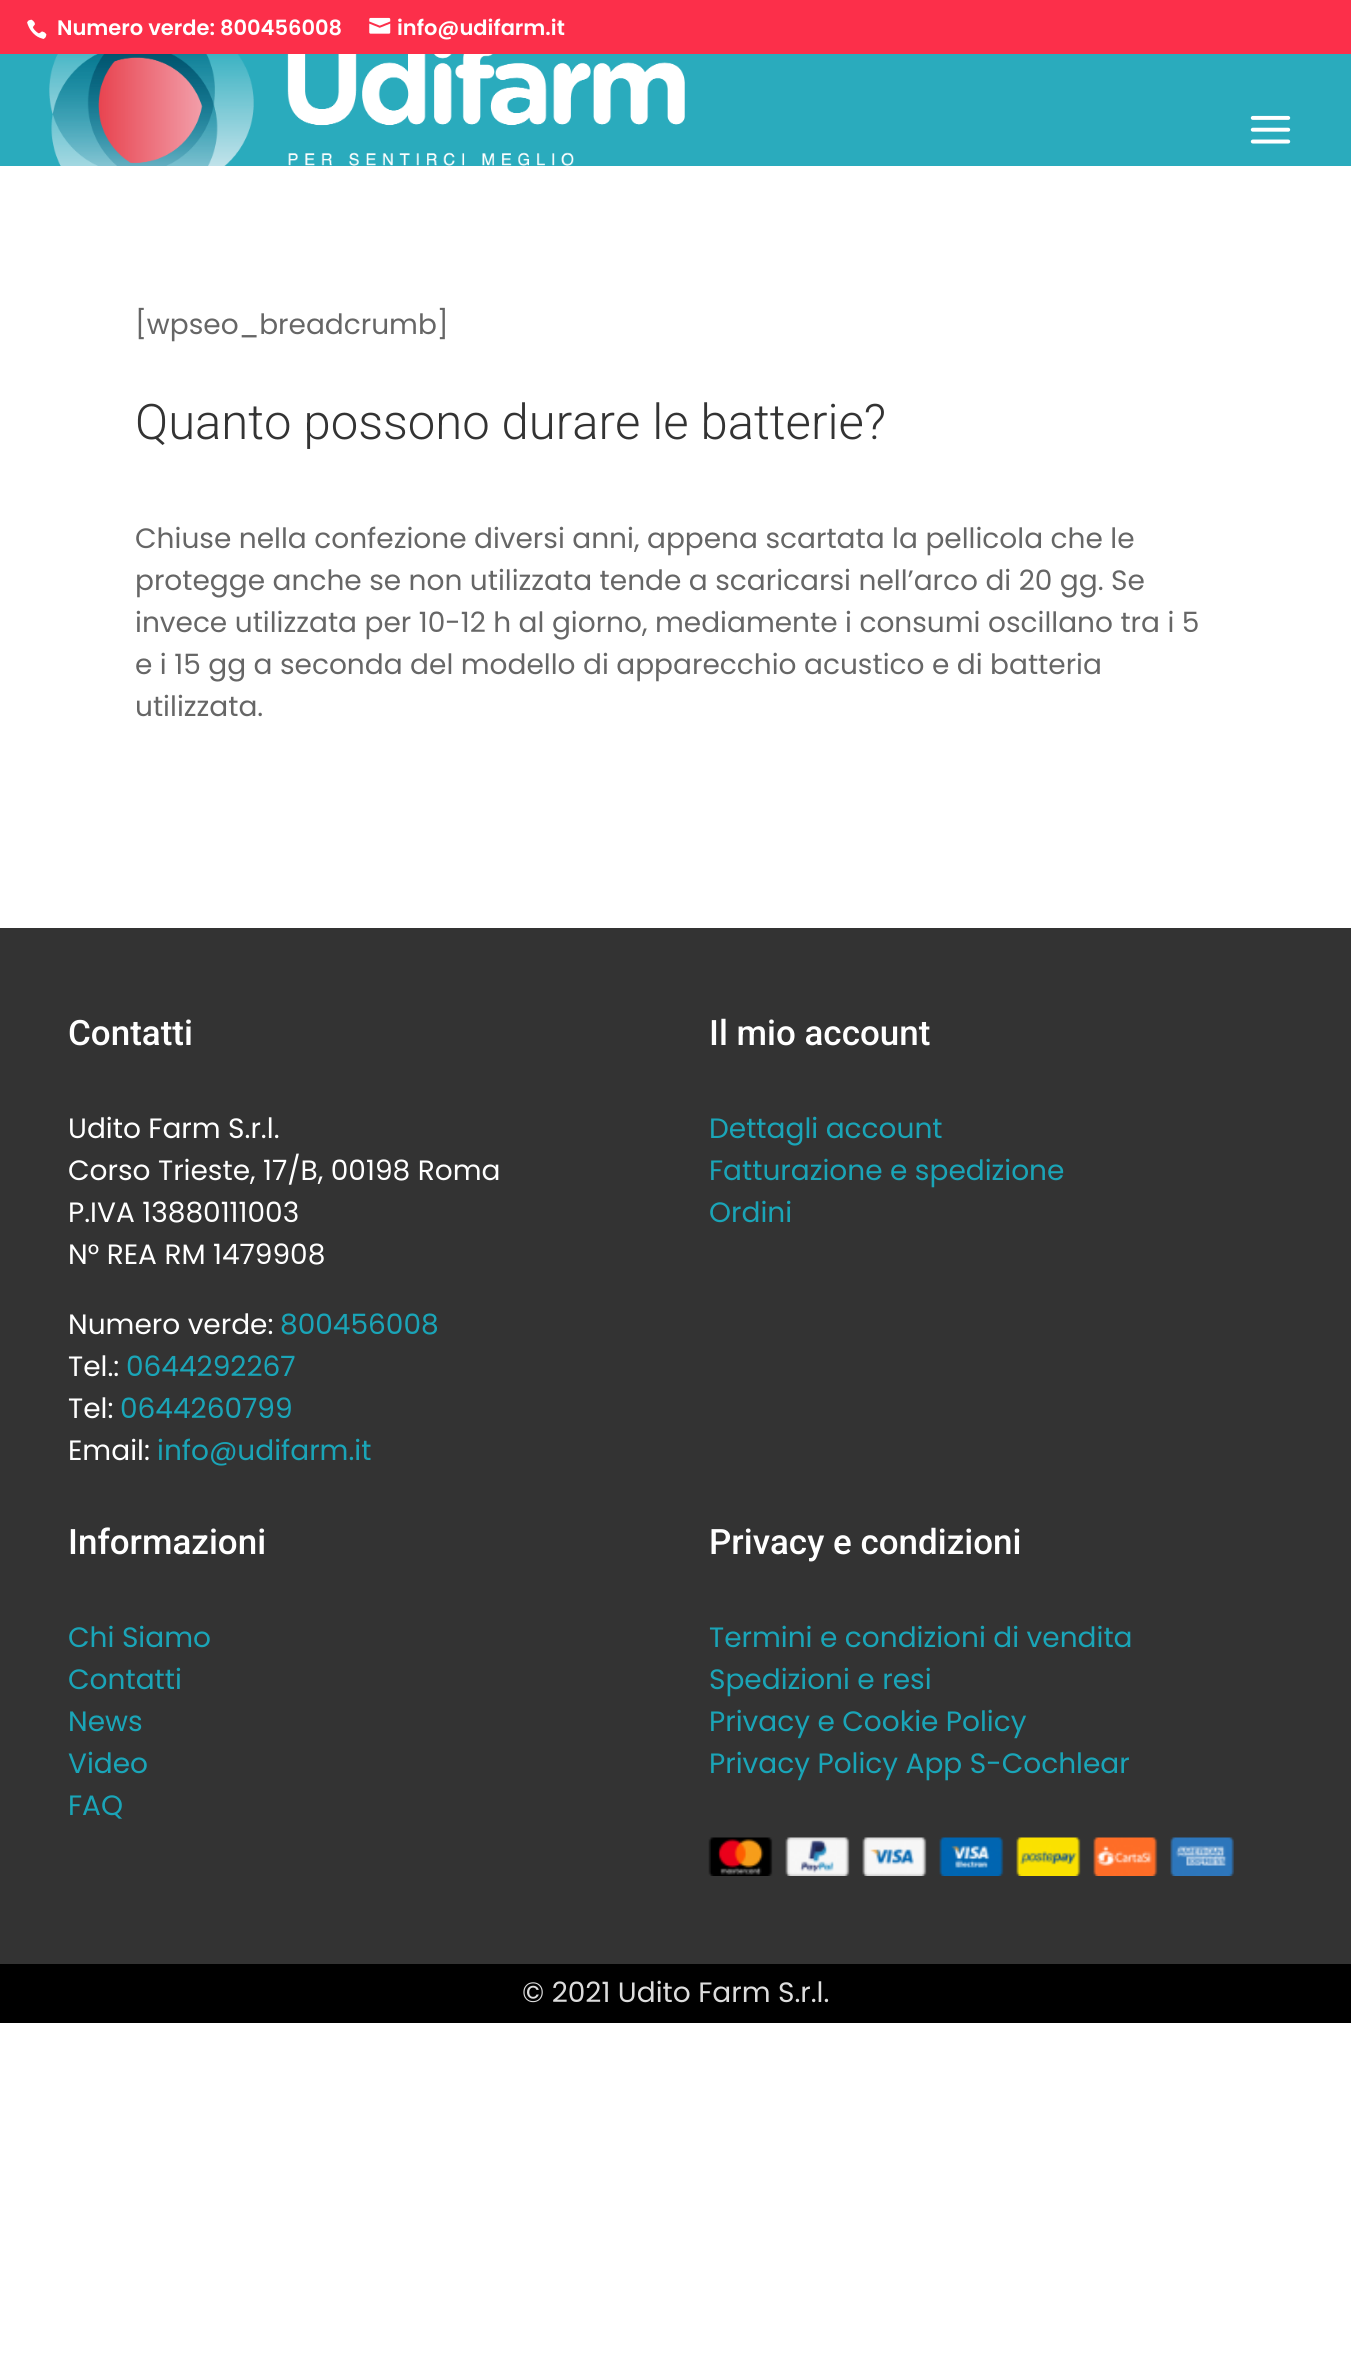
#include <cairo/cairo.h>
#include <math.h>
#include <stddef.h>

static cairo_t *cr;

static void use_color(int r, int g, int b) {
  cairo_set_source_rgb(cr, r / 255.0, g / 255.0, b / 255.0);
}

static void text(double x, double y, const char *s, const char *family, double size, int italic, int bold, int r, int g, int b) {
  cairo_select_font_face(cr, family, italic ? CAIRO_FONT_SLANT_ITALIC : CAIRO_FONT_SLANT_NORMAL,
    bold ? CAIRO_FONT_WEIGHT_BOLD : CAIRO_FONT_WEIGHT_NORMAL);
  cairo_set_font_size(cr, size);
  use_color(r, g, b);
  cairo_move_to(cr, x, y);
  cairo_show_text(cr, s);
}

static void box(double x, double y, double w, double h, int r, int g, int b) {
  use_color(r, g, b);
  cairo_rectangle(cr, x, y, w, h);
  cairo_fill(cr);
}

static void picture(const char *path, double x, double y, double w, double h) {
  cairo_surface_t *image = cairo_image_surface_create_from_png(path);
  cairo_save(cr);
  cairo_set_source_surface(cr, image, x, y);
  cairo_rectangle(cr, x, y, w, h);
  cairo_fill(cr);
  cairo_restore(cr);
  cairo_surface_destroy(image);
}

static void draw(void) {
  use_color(255, 255, 255);
  cairo_paint(cr);
  box(0, 0, 1351, 54, 252, 47, 74);
  picture("img_01.png", 27, 19, 20, 20);
  picture("img_02.png", 369, 17, 22, 17);
  box(0, 54, 1351, 112, 42, 171, 189);
  picture("img_03.png", 49, 54, 636, 112);
  picture("img_04.png", 1250, 115, 41, 29);
  box(0, 928, 1351, 1036, 51, 51, 51);
  picture("img_05.png", 708, 1837, 526, 39);
  box(0, 1964, 1351, 59, 0, 0, 0);
  text(57, 35, "Numero verde: 800456008", "Poppins SemiBold", 21, 0, 0, 255, 255, 255);
  text(397, 35, "info@udifarm.it", "Poppins SemiBold", 21, 0, 0, 255, 255, 255);
  text(135, 334, "[wpseo_breadcrumb]", "Poppins", 28, 0, 0, 102, 102, 102);
  text(135, 439, "Quanto possono durare le batterie?", "Roboto Light", 49, 0, 0, 51, 51, 51);
  text(135, 548, "Chiuse nella confezione diversi anni, appena scartata la pellicola che le", "Poppins", 28, 0, 0, 102, 102, 102);
  text(135, 590, "protegge anche se non utilizzata tende a scaricarsi nell’arco di 20 gg. Se", "Poppins", 28, 0, 0, 102, 102, 102);
  text(135, 632, "invece utilizzata per 10-12 h al giorno, mediamente i consumi oscillano tra i 5", "Poppins", 28, 0, 0, 102, 102, 102);
  text(135, 674, "e i 15 gg a seconda del modello di apparecchio acustico e di batteria", "Poppins", 28, 0, 0, 102, 102, 102);
  text(135, 716, "utilizzata.", "Poppins", 28, 0, 0, 102, 102, 102);
  text(68, 1045, "Contatti", "Roboto Medium", 35, 0, 0, 255, 255, 255);
  text(68, 1138, "Udito Farm S.r.l.", "Poppins", 28, 0, 0, 255, 255, 255);
  text(68, 1180, "Corso Trieste, 17/B, 00198 Roma", "Poppins", 28, 0, 0, 255, 255, 255);
  text(68, 1222, "P.IVA 13880111003", "Poppins", 28, 0, 0, 255, 255, 255);
  text(68, 1264, "N° REA RM 1479908", "Poppins", 28, 0, 0, 255, 255, 255);
  text(68, 1334, "Numero verde:", "Poppins", 28, 0, 0, 255, 255, 255);
  text(280, 1334, "800456008", "Poppins", 28, 0, 0, 26, 165, 184);
  text(68, 1376, "Tel.:", "Poppins", 28, 0, 0, 255, 255, 255);
  text(126, 1376, "0644292267", "Poppins", 28, 0, 0, 26, 165, 184);
  text(68, 1418, "Tel:", "Poppins", 28, 0, 0, 255, 255, 255);
  text(120, 1418, "0644260799", "Poppins", 28, 0, 0, 26, 165, 184);
  text(68, 1460, "Email:", "Poppins", 28, 0, 0, 255, 255, 255);
  text(157, 1460, "info@udifarm.it", "Poppins", 28, 0, 0, 26, 165, 184);
  text(709, 1045, "Il mio account", "Roboto Medium", 35, 0, 0, 255, 255, 255);
  text(709, 1138, "Dettagli account", "Poppins", 28, 0, 0, 26, 165, 184);
  text(709, 1180, "Fatturazione e spedizione", "Poppins", 28, 0, 0, 26, 165, 184);
  text(709, 1222, "Ordini", "Poppins", 28, 0, 0, 26, 165, 184);
  text(68, 1554, "Informazioni", "Roboto Medium", 35, 0, 0, 255, 255, 255);
  text(68, 1647, "Chi Siamo", "Poppins", 28, 0, 0, 26, 165, 184);
  text(68, 1689, "Contatti", "Poppins", 28, 0, 0, 26, 165, 184);
  text(68, 1731, "News", "Poppins", 28, 0, 0, 26, 165, 184);
  text(68, 1773, "Video", "Poppins", 28, 0, 0, 26, 165, 184);
  text(68, 1815, "FAQ", "Poppins", 28, 0, 0, 26, 165, 184);
  text(709, 1554, "Privacy e condizioni", "Roboto Medium", 35, 0, 0, 255, 255, 255);
  text(709, 1647, "Termini e condizioni di vendita", "Poppins", 28, 0, 0, 26, 165, 184);
  text(709, 1689, "Spedizioni e resi", "Poppins", 28, 0, 0, 26, 165, 184);
  text(709, 1731, "Privacy e Cookie Policy", "Poppins", 28, 0, 0, 26, 165, 184);
  text(709, 1773, "Privacy Policy App S-Cochlear", "Poppins", 28, 0, 0, 26, 165, 184);
  text(522, 2002, "© 2021 Udito Farm S.r.l.", "Poppins", 28, 0, 0, 221, 221, 221);
}

int main(void) {
  cairo_surface_t *surface = cairo_image_surface_create(CAIRO_FORMAT_RGB24, 1351, 2380);
  cr = cairo_create(surface);
  cairo_font_options_t *options = cairo_font_options_create();
  cairo_font_options_set_hint_metrics(options, CAIRO_HINT_METRICS_OFF);
  cairo_font_options_set_hint_style(options, CAIRO_HINT_STYLE_NONE);
  cairo_set_font_options(cr, options);
  cairo_set_miter_limit(cr, 4);
  draw();
  cairo_surface_write_to_png(surface, "out.png");
  cairo_font_options_destroy(options);
  cairo_destroy(cr);
  cairo_surface_destroy(surface);
  return 0;
}
